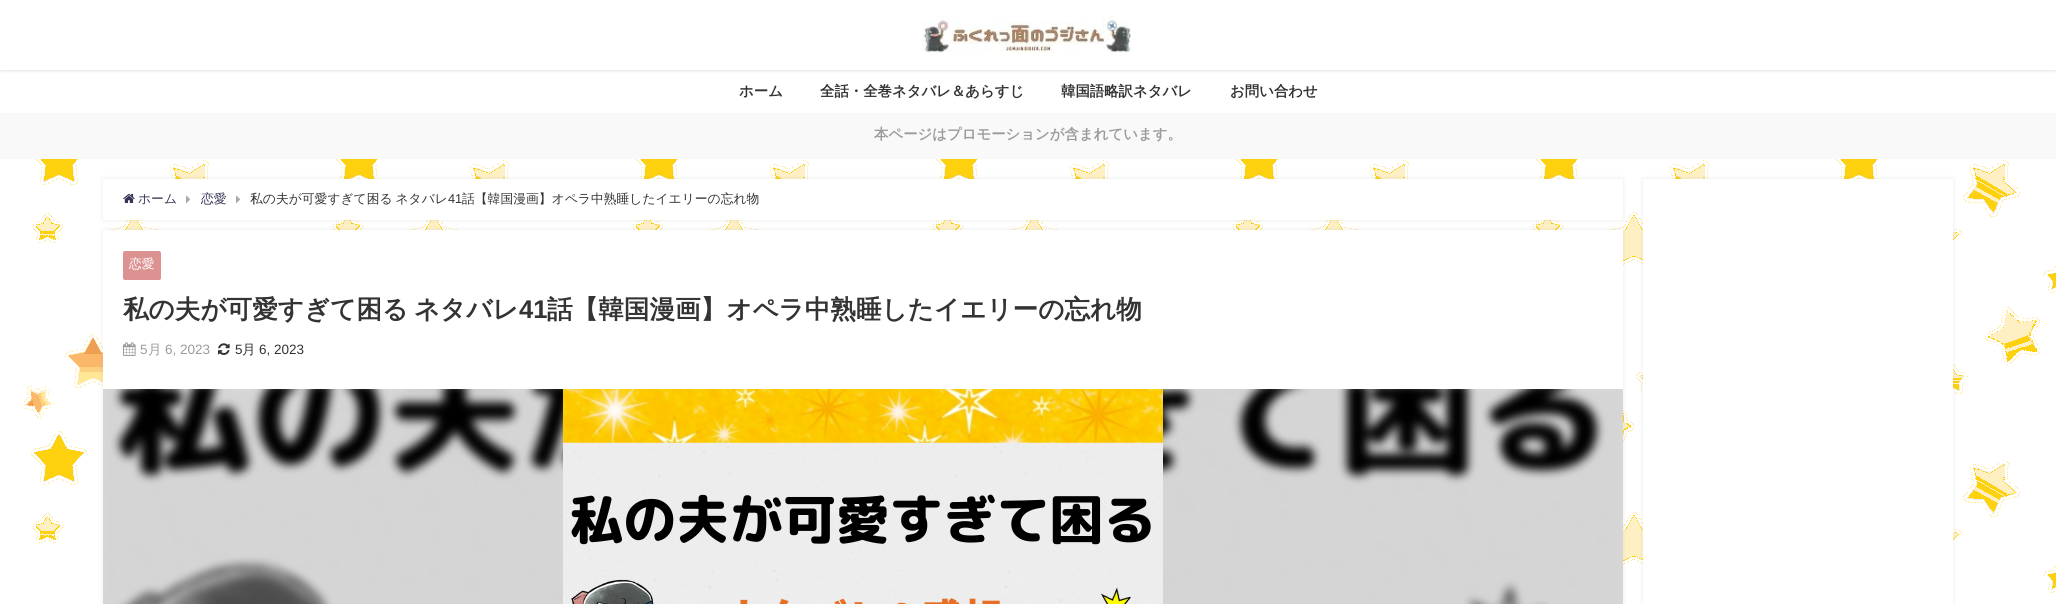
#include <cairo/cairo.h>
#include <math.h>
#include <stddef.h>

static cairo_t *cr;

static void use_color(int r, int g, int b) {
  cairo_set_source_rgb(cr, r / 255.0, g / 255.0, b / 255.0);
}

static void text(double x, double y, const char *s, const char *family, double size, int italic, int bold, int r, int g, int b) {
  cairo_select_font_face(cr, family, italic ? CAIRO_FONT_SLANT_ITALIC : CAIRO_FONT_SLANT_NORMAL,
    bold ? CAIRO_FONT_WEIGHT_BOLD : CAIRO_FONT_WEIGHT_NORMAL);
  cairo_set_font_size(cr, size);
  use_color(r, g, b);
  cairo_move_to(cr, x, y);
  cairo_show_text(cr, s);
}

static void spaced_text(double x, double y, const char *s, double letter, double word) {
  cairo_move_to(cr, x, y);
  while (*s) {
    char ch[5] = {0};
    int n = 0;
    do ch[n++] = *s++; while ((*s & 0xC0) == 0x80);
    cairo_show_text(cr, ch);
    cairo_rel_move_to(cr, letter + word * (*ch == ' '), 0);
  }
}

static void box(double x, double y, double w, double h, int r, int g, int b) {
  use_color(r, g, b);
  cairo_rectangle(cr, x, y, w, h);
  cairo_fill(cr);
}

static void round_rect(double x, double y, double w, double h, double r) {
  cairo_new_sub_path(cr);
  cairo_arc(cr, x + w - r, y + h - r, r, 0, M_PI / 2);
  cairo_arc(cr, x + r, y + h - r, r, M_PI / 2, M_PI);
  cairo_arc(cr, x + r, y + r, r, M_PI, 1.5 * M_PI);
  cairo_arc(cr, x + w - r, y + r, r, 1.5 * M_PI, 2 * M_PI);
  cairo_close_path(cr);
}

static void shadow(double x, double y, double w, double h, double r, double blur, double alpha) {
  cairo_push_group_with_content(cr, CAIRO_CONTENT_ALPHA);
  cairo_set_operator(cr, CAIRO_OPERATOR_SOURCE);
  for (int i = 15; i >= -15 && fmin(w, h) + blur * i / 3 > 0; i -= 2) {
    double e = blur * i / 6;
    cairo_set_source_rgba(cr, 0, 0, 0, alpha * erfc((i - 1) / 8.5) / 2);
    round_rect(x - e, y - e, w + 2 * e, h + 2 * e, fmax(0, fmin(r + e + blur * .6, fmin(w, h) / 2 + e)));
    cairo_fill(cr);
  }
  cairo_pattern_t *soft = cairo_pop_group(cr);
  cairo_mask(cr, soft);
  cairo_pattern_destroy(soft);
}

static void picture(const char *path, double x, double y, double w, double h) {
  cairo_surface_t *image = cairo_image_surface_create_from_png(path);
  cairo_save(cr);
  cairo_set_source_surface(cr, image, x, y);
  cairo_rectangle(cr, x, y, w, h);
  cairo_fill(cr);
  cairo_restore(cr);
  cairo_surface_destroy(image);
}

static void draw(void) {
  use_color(255, 255, 255);
  cairo_paint(cr);
  picture("img_01.png", 0, 159, 2056, 445);
  use_color(0, 0, 0);
  shadow(0, 0, 2056, 70, 0, 2, 0.2);
  box(0, 0, 2056, 70, 255, 255, 255);
  picture("img_02.png", 922, 16, 209, 39);
  box(0, 113, 2056, 46, 249, 249, 249);
  use_color(150, 150, 150);
  shadow(103, 179, 1520, 41, 0, 2.5, 0.2);
  box(103, 179, 1520, 41, 255, 255, 255);
  picture("img_03.png", 123, 193, 12, 10);
  picture("img_04.png", 186, 195, 4, 8);
  picture("img_04.png", 236, 195, 4, 8);
  use_color(150, 150, 150);
  shadow(103, 230, 1520, 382, 0, 2.5, 0.2);
  box(103, 230, 1520, 159, 255, 255, 255);
  use_color(221, 146, 146);
  round_rect(123, 251, 38, 29, 2);
  cairo_fill(cr);
  picture("img_05.png", 123, 342, 13, 14);
  picture("img_06.png", 218, 343, 12, 12);
  picture("img_07.png", 103, 389, 1520, 215);
  cairo_save(cr);
  cairo_rectangle(cr, 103, 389, 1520, 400);
  cairo_clip(cr);
  use_color(229, 229, 229);
  shadow(98, 384, 1530, 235, 0, 5, 1);
  cairo_restore(cr);
  picture("img_08.png", 103, 389, 1520, 215);
  picture("img_09.png", 563, 389, 600, 215);
  use_color(150, 150, 150);
  shadow(1643, 179, 310, 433, 0, 2.5, 0.2);
  box(1643, 179, 310, 425, 255, 255, 255);
  text(739, 96, "ホーム", "WenQuanYi Zen Hei", 14.4, 0, 1, 51, 51, 51);
  text(820, 96, "全話・全巻ネタバレ＆あらすじ", "WenQuanYi Zen Hei", 14.4, 0, 1, 51, 51, 51);
  text(1061, 96, "韓国語略訳ネタバレ", "WenQuanYi Zen Hei", 14.4, 0, 1, 51, 51, 51);
  text(1230, 96, "お問い合わせ", "WenQuanYi Zen Hei", 14.4, 0, 1, 51, 51, 51);
  text(874, 139, "本ページはプロモーションが含まれています。", "WenQuanYi Zen Hei", 14.4, 0, 1, 155, 155, 155);
  text(138, 203, "ホーム", "WenQuanYi Zen Hei Medium", 12.8, 0, 0, 51, 51, 85);
  text(201, 203, "恋愛", "WenQuanYi Zen Hei Medium", 12.8, 0, 0, 51, 51, 85);
  use_color(51, 51, 51);
  spaced_text(250, 203, "私の夫が可愛すぎて困る ネタバレ", 0, -1);
  text(448, 203, "41", "Liberation Sans", 12.8, 0, 0, 51, 51, 51);
  text(462, 203, "話【韓国漫画】オペラ中熟睡したイエリーの忘れ物", "WenQuanYi Zen Hei Medium", 12.8, 0, 0, 51, 51, 51);
  text(129, 268, "恋愛", "WenQuanYi Zen Hei Medium", 12.8, 0, 0, 255, 255, 255);
  cairo_select_font_face(cr, "WenQuanYi Zen Hei", CAIRO_FONT_SLANT_NORMAL, CAIRO_FONT_WEIGHT_BOLD);
  cairo_set_font_size(cr, 25.6);
  use_color(51, 51, 51);
  spaced_text(123, 318, "私の夫が可愛すぎて困る ネタバレ", 0, -2);
  text(519, 318, "41", "Liberation Sans", 25.6, 0, 1, 51, 51, 51);
  text(547, 318, "話【韓国漫画】オペラ中熟睡したイエリーの忘れ物", "WenQuanYi Zen Hei", 25.6, 0, 1, 51, 51, 51);
  text(140, 354, "5", "Liberation Sans", 13.5, 0, 0, 155, 155, 155);
  text(148, 354, "月", "WenQuanYi Zen Hei Medium", 13.5, 0, 0, 155, 155, 155);
  text(165, 354, "6, 2023", "Liberation Sans", 13.5, 0, 0, 155, 155, 155);
  text(235, 354, "5", "Liberation Sans", 13.5, 0, 0, 51, 51, 51);
  text(242, 354, "月", "WenQuanYi Zen Hei Medium", 13.5, 0, 0, 51, 51, 51);
  text(259, 354, "6, 2023", "Liberation Sans", 13.5, 0, 0, 51, 51, 51);
}

int main(void) {
  cairo_surface_t *surface = cairo_image_surface_create(CAIRO_FORMAT_RGB24, 2056, 604);
  cr = cairo_create(surface);
  cairo_font_options_t *options = cairo_font_options_create();
  cairo_font_options_set_hint_metrics(options, CAIRO_HINT_METRICS_OFF);
  cairo_font_options_set_hint_style(options, CAIRO_HINT_STYLE_NONE);
  cairo_set_font_options(cr, options);
  cairo_set_miter_limit(cr, 4);
  draw();
  cairo_surface_write_to_png(surface, "out.png");
  cairo_font_options_destroy(options);
  cairo_destroy(cr);
  cairo_surface_destroy(surface);
  return 0;
}
